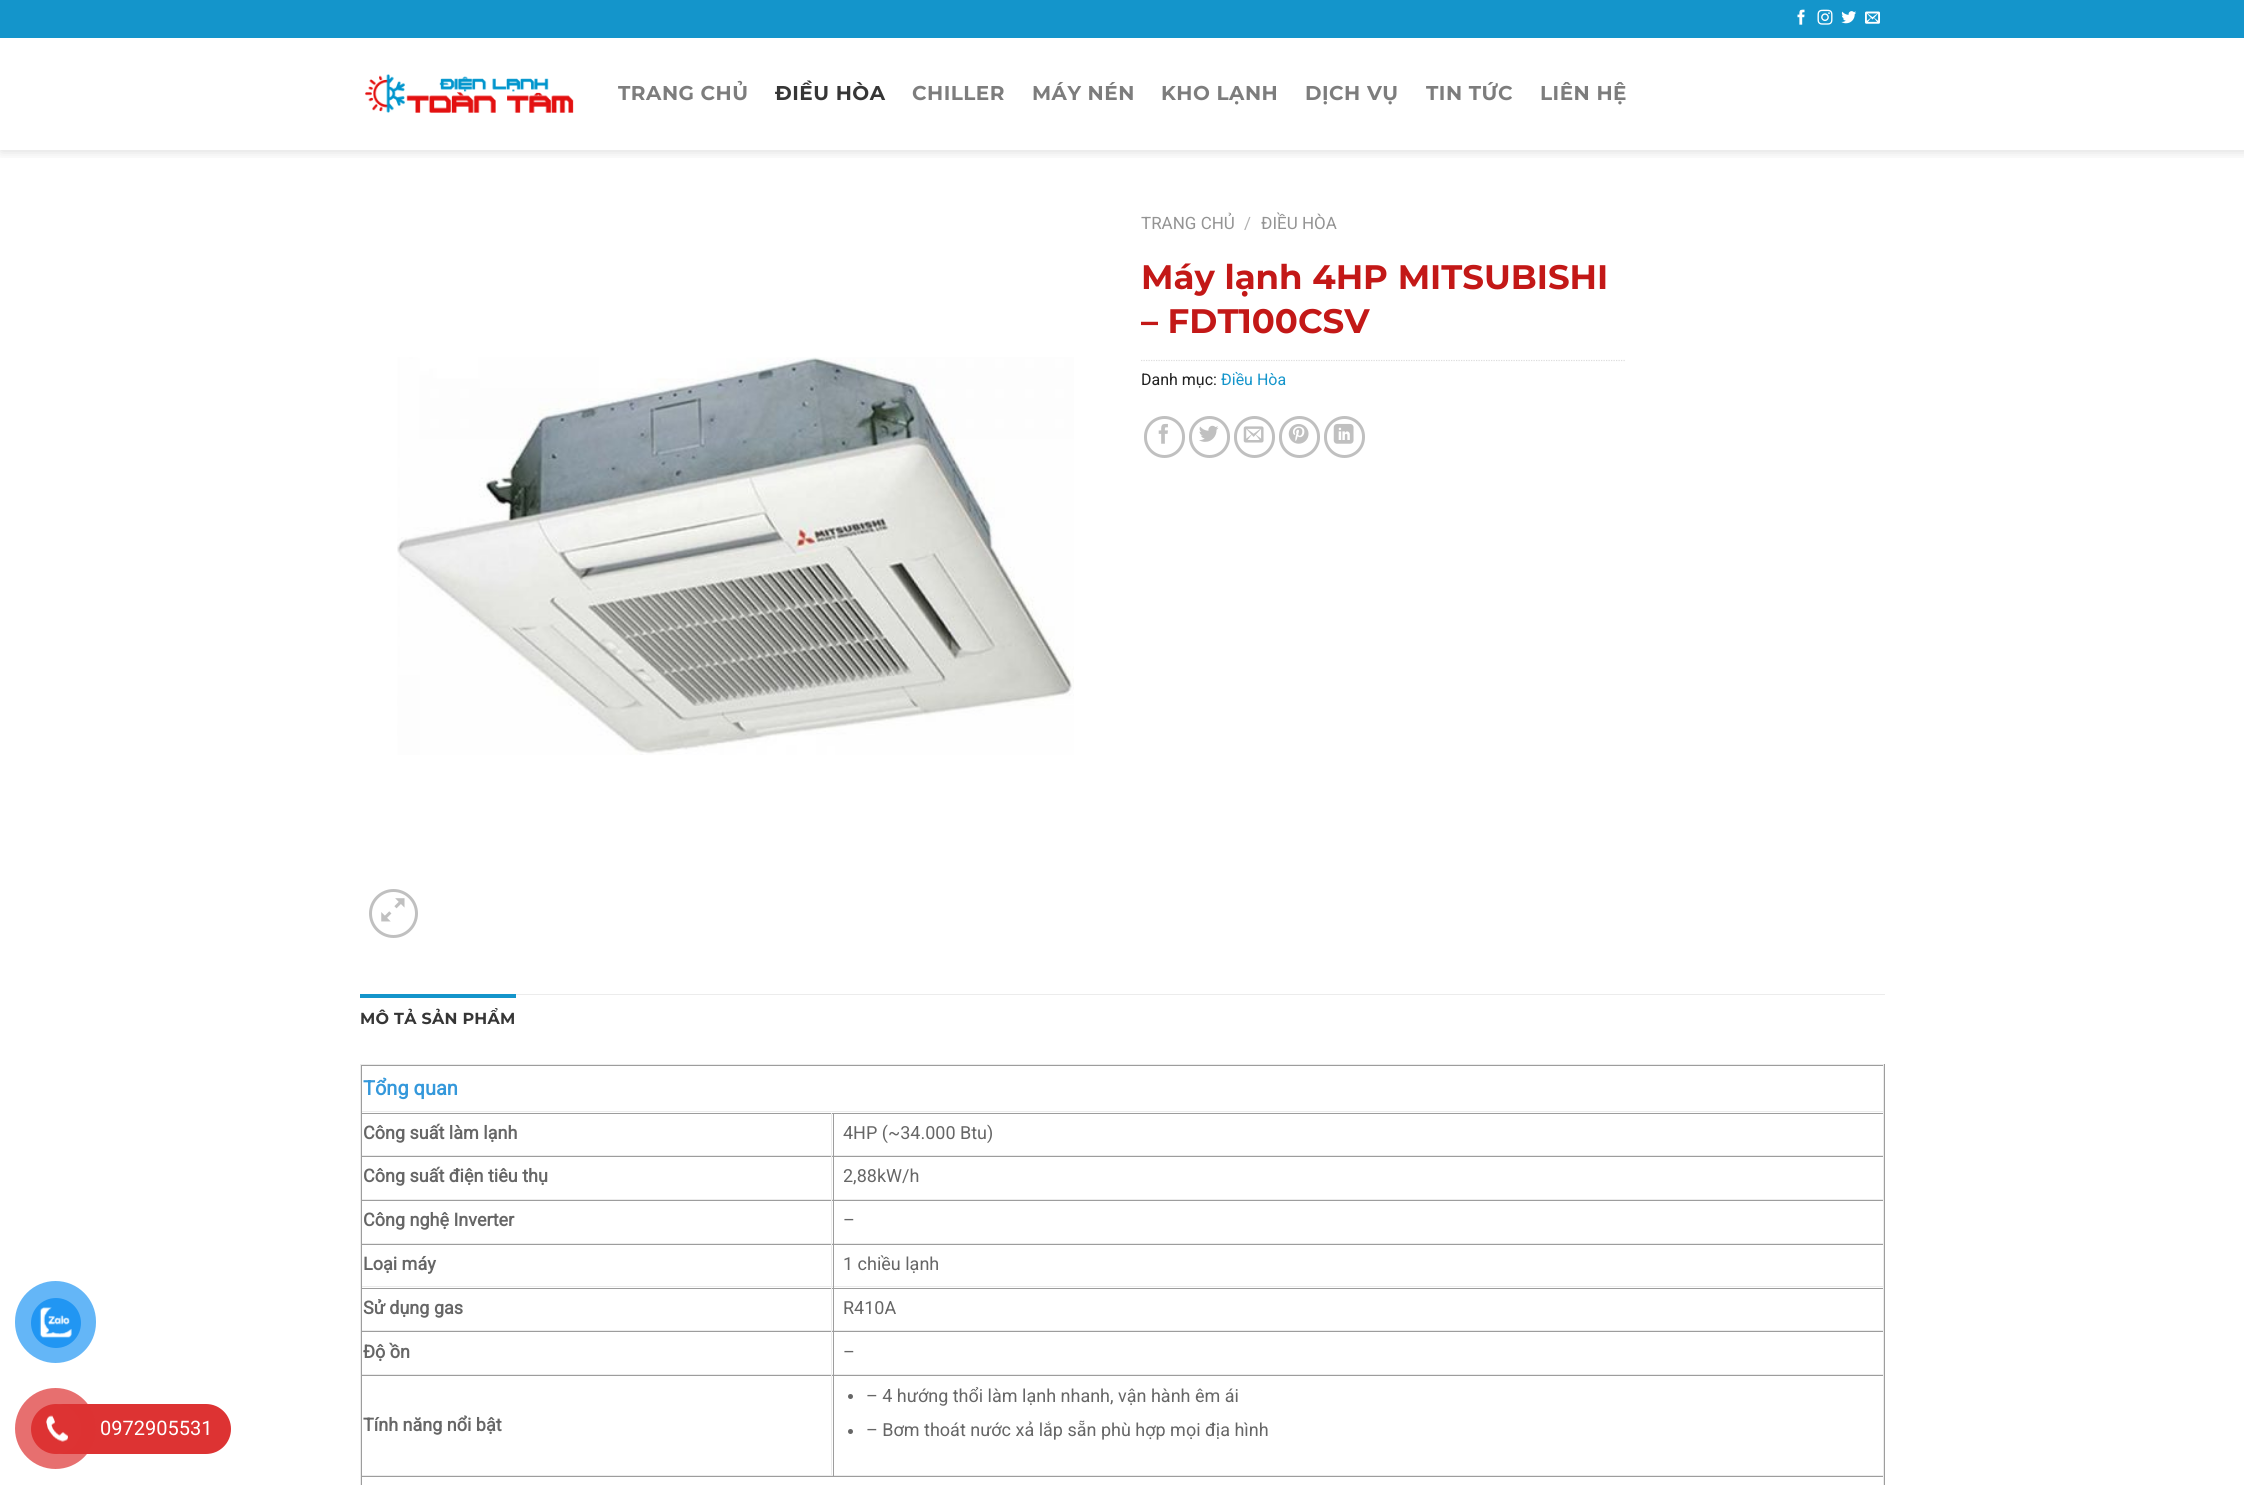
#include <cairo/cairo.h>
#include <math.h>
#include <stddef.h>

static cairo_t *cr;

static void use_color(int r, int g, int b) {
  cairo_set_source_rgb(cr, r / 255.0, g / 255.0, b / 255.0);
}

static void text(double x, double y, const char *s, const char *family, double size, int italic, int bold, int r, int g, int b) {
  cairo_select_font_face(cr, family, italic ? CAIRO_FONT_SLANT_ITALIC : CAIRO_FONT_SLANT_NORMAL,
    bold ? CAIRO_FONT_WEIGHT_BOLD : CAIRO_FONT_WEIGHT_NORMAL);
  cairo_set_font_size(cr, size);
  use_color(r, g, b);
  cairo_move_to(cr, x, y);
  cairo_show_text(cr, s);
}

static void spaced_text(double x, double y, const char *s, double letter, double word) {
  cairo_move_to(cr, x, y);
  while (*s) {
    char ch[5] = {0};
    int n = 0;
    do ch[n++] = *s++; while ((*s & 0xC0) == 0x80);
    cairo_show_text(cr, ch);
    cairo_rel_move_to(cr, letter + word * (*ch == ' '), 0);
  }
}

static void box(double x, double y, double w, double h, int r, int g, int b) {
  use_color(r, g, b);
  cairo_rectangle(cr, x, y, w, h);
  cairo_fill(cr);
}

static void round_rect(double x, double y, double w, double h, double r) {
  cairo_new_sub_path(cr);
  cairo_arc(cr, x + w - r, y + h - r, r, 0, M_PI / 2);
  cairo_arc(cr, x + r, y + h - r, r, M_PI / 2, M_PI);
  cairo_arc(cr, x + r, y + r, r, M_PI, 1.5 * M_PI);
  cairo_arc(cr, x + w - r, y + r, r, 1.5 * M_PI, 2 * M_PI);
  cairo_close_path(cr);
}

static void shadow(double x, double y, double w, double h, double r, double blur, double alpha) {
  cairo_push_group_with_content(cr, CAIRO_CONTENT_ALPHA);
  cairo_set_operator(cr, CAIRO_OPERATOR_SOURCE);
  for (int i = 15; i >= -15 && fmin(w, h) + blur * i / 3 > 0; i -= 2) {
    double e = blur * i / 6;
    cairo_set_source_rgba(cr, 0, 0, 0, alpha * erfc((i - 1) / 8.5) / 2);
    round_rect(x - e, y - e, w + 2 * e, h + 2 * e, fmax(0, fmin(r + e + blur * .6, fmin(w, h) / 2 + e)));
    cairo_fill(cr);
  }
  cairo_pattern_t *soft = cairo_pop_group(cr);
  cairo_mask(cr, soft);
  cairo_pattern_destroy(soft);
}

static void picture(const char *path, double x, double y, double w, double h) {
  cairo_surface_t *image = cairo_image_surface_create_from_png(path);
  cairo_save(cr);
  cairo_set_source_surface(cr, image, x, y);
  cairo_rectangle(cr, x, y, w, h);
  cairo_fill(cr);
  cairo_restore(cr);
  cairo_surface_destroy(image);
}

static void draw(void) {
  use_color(255, 255, 255);
  cairo_paint(cr);
  use_color(100, 182, 247);
  round_rect(15, 1281, 81, 82, 40.5);
  cairo_fill(cr);
  use_color(33, 150, 243);
  cairo_arc(cr, 56, 1323, 25, 0, 2 * M_PI);
  cairo_fill(cr);
  picture("img_01.png", 39, 1307, 33, 31);
  use_color(221, 51, 51);
  round_rect(38, 1404, 193, 50, 25);
  cairo_fill(cr);
  cairo_set_source_rgba(cr, 0.867, 0.2, 0.2, 0.7);
  cairo_arc(cr, 55.5, 1428.5, 40.5, 0, 2 * M_PI);
  cairo_fill(cr);
  use_color(221, 51, 51);
  cairo_arc(cr, 56, 1429, 25, 0, 2 * M_PI);
  cairo_fill(cr);
  picture("img_02.png", 46, 1415, 22, 27);
  cairo_save(cr);
  cairo_rectangle(cr, 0, 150, 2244, 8);
  cairo_clip(cr);
  use_color(0, 0, 0);
  shadow(1, 1, 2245, 150, 0, 6, 0.15);
  cairo_restore(cr);
  box(0, 0, 2244, 38, 20, 149, 203);
  picture("img_03.png", 1797, 9, 8, 16);
  picture("img_04.png", 1817, 9, 16, 16);
  picture("img_05.png", 1841, 11, 16, 13);
  picture("img_06.png", 1865, 11, 15, 13);
  picture("img_07.png", 365, 74, 209, 39);
  cairo_new_path(cr);
  cairo_move_to(cr, 1141, 360.5);
  cairo_line_to(cr, 1625, 360.5);
  use_color(221, 221, 221);
  cairo_set_line_width(cr, 1.2);
  cairo_set_dash(cr, (double[]){1.25, 1.25}, 2, 0);
  cairo_stroke(cr);
  round_rect(1145.5, 417.5, 38, 39, 19);
  use_color(192, 192, 192);
  cairo_set_line_width(cr, 3);
  cairo_set_dash(cr, NULL, 0, 0);
  cairo_stroke(cr);
  picture("img_08.png", 1158, 423, 10, 21);
  round_rect(1190.5, 417.5, 38, 39, 19);
  cairo_stroke(cr);
  picture("img_09.png", 1199, 425, 20, 17);
  round_rect(1235.5, 417.5, 38, 39, 19);
  cairo_stroke(cr);
  picture("img_10.png", 1243, 426, 21, 17);
  round_rect(1280.5, 417.5, 38, 39, 19);
  cairo_stroke(cr);
  picture("img_11.png", 1288, 424, 21, 20);
  round_rect(1325.5, 417.5, 38, 39, 19);
  cairo_stroke(cr);
  picture("img_12.png", 1333, 423, 21, 21);
  picture("img_13.png", 397, 357, 677, 398);
  cairo_arc(cr, 393.5, 913.5, 23, 0, 2 * M_PI);
  cairo_stroke(cr);
  picture("img_14.png", 381, 898, 24, 24);
  box(516, 994, 1369, 1, 236, 236, 236);
  box(360, 994, 156, 4, 20, 149, 203);
  box(360, 1064, 1525, 1, 236, 236, 236);
  box(1884, 1064, 1, 421, 157, 157, 157);
  box(360, 1064, 1, 421, 236, 236, 236);
  box(361, 1065, 1523, 1, 157, 157, 157);
  box(1883, 1065, 1, 48, 236, 236, 236);
  box(361, 1111, 1523, 1, 236, 236, 236);
  box(361, 1065, 1, 48, 157, 157, 157);
  box(361, 1113, 1523, 1, 157, 157, 157);
  box(831, 1113, 1, 43, 236, 236, 236);
  box(361, 1155, 472, 1, 236, 236, 236);
  box(361, 1113, 1, 43, 157, 157, 157);
  box(1883, 1113, 1, 43, 236, 236, 236);
  box(833, 1155, 1051, 1, 236, 236, 236);
  box(833, 1113, 1, 43, 157, 157, 157);
  box(361, 1156, 1523, 1, 157, 157, 157);
  box(831, 1156, 1, 44, 236, 236, 236);
  box(361, 1199, 472, 1, 236, 236, 236);
  box(361, 1156, 1, 44, 157, 157, 157);
  box(1883, 1156, 1, 44, 236, 236, 236);
  box(833, 1199, 1051, 1, 236, 236, 236);
  box(833, 1156, 1, 44, 157, 157, 157);
  box(361, 1200, 1523, 1, 157, 157, 157);
  box(831, 1200, 1, 44, 236, 236, 236);
  box(361, 1243, 472, 1, 236, 236, 236);
  box(361, 1200, 1, 44, 157, 157, 157);
  box(1883, 1200, 1, 44, 236, 236, 236);
  box(833, 1243, 1051, 1, 236, 236, 236);
  box(833, 1200, 1, 44, 157, 157, 157);
  box(361, 1244, 1523, 1, 157, 157, 157);
  box(831, 1244, 1, 44, 236, 236, 236);
  box(361, 1286, 472, 1, 236, 236, 236);
  box(361, 1244, 1, 44, 157, 157, 157);
  box(1883, 1244, 1, 44, 236, 236, 236);
  box(833, 1286, 1051, 1, 236, 236, 236);
  box(833, 1244, 1, 44, 157, 157, 157);
  box(361, 1288, 1523, 1, 157, 157, 157);
  box(831, 1288, 1, 43, 236, 236, 236);
  box(361, 1330, 472, 1, 236, 236, 236);
  box(361, 1288, 1, 43, 157, 157, 157);
  box(1883, 1288, 1, 43, 236, 236, 236);
  box(833, 1330, 1051, 1, 236, 236, 236);
  box(833, 1288, 1, 43, 157, 157, 157);
  box(361, 1331, 1523, 1, 157, 157, 157);
  box(831, 1331, 1, 44, 236, 236, 236);
  box(361, 1374, 472, 1, 236, 236, 236);
  box(361, 1331, 1, 44, 157, 157, 157);
  box(1883, 1331, 1, 44, 236, 236, 236);
  box(833, 1374, 1051, 1, 236, 236, 236);
  box(833, 1331, 1, 44, 157, 157, 157);
  box(361, 1375, 1523, 1, 157, 157, 157);
  box(831, 1375, 1, 101, 236, 236, 236);
  box(361, 1475, 472, 1, 236, 236, 236);
  box(361, 1375, 1, 101, 157, 157, 157);
  box(1883, 1375, 1, 101, 236, 236, 236);
  box(833, 1475, 1051, 1, 236, 236, 236);
  box(833, 1375, 1, 101, 157, 157, 157);
  use_color(102, 102, 102);
  cairo_arc(cr, 850.5, 1396.5, 2.5, 0, 2 * M_PI);
  cairo_fill(cr);
  cairo_arc(cr, 850.5, 1431.5, 2.5, 0, 2 * M_PI);
  cairo_fill(cr);
  box(361, 1476, 1523, 1, 157, 157, 157);
  box(1883, 1476, 1, 9, 236, 236, 236);
  box(361, 1476, 1, 9, 157, 157, 157);
  text(100, 1435, "0972905531", "Roboto", 20, 0, 0, 255, 255, 255);
  cairo_select_font_face(cr, "Montserrat Thin", CAIRO_FONT_SLANT_NORMAL, CAIRO_FONT_WEIGHT_NORMAL);
  use_color(125, 125, 125);
  spaced_text(618, 100, "TRANG CHỦ", 0.5, 0);
  use_color(54, 54, 54);
  spaced_text(775, 100, "ĐIỀU HÒA", 0.5, 0);
  use_color(125, 125, 125);
  spaced_text(912, 100, "CHILLER", 0.5, 0);
  spaced_text(1032, 100, "MÁY NÉN", 0.5, 0);
  spaced_text(1161, 100, "KHO LẠNH", 0.5, 0);
  spaced_text(1305, 100, "DỊCH VỤ", 0.5, 0);
  spaced_text(1426, 100, "TIN TỨC", 0.5, 0);
  spaced_text(1540, 100, "LIÊN HỆ", 0.5, 0);
  text(1141, 229, "TRANG CHỦ", "Roboto", 17, 0, 0, 148, 148, 148);
  text(1244, 229, "/", "Roboto", 17, 0, 0, 178, 178, 178);
  text(1261, 229, "ĐIỀU HÒA", "Roboto", 17, 0, 0, 148, 148, 148);
  text(1141, 289, "Máy lạnh 4HP MITSUBISHI", "Montserrat Thin", 34, 0, 0, 195, 24, 23);
  text(1141, 333, "– FDT100CSV", "Montserrat Thin", 34, 0, 0, 195, 24, 23);
  text(1141, 385, "Danh mục:", "Roboto", 16, 0, 0, 33, 33, 33);
  text(1221, 385, "Điều Hòa", "Roboto", 16, 0, 0, 20, 149, 203);
  cairo_select_font_face(cr, "Montserrat Thin", CAIRO_FONT_SLANT_NORMAL, CAIRO_FONT_WEIGHT_NORMAL);
  use_color(54, 54, 54);
  spaced_text(360, 1024, "MÔ TẢ SẢN PHẨM", 0.25, 0);
  text(363, 1095, "Tổng quan", "Roboto", 20, 0, 1, 52, 152, 219);
  text(363, 1139, "Công suất làm lạnh", "Roboto", 18, 0, 1, 102, 102, 102);
  text(843, 1139, "4HP (~34.000 Btu)", "Roboto", 18, 0, 0, 102, 102, 102);
  text(363, 1182, "Công suất điện tiêu thụ", "Roboto", 18, 0, 1, 102, 102, 102);
  text(843, 1182, "2,88kW/h", "Roboto", 18, 0, 0, 102, 102, 102);
  text(363, 1226, "Công nghệ Inverter", "Roboto", 18, 0, 1, 102, 102, 102);
  text(843, 1226, "–", "Roboto", 18, 0, 0, 102, 102, 102);
  text(363, 1270, "Loại máy", "Roboto", 18, 0, 1, 102, 102, 102);
  text(843, 1270, "1 chiều lạnh", "Roboto", 18, 0, 0, 102, 102, 102);
  text(363, 1314, "Sử dụng gas", "Roboto", 18, 0, 1, 102, 102, 102);
  text(843, 1314, "R410A", "Roboto", 18, 0, 0, 102, 102, 102);
  text(363, 1358, "Độ ồn", "Roboto", 18, 0, 1, 102, 102, 102);
  text(843, 1358, "–", "Roboto", 18, 0, 0, 102, 102, 102);
  text(363, 1431, "Tính năng nổi bật", "Roboto", 18, 0, 1, 102, 102, 102);
  text(866, 1402, "– 4 hướng thổi làm lạnh nhanh, vận hành êm ái", "Roboto", 18, 0, 0, 102, 102, 102);
  text(866, 1436, "– Bơm thoát nước xả lắp sẵn phù hợp mọi địa hình", "Roboto", 18, 0, 0, 102, 102, 102);
}

int main(void) {
  cairo_surface_t *surface = cairo_image_surface_create(CAIRO_FORMAT_RGB24, 2244, 1485);
  cr = cairo_create(surface);
  cairo_font_options_t *options = cairo_font_options_create();
  cairo_font_options_set_hint_metrics(options, CAIRO_HINT_METRICS_OFF);
  cairo_font_options_set_hint_style(options, CAIRO_HINT_STYLE_NONE);
  cairo_set_font_options(cr, options);
  cairo_set_miter_limit(cr, 4);
  draw();
  cairo_surface_write_to_png(surface, "out.png");
  cairo_font_options_destroy(options);
  cairo_destroy(cr);
  cairo_surface_destroy(surface);
  return 0;
}
